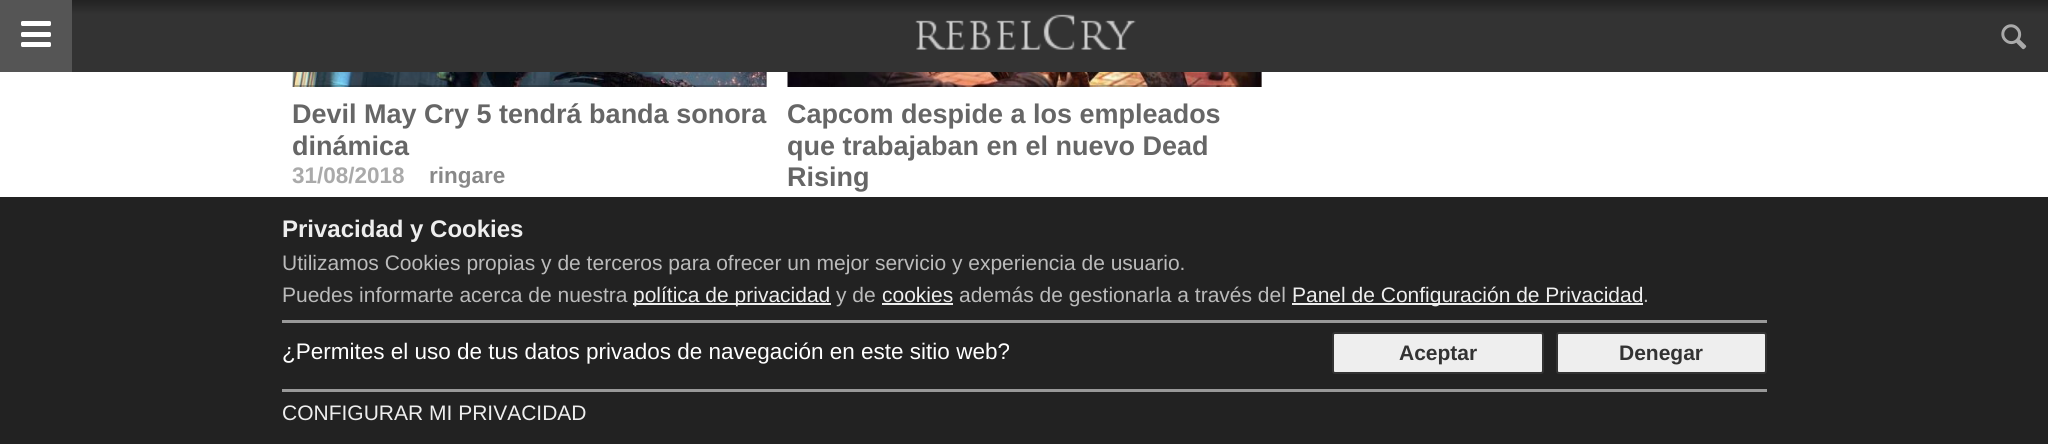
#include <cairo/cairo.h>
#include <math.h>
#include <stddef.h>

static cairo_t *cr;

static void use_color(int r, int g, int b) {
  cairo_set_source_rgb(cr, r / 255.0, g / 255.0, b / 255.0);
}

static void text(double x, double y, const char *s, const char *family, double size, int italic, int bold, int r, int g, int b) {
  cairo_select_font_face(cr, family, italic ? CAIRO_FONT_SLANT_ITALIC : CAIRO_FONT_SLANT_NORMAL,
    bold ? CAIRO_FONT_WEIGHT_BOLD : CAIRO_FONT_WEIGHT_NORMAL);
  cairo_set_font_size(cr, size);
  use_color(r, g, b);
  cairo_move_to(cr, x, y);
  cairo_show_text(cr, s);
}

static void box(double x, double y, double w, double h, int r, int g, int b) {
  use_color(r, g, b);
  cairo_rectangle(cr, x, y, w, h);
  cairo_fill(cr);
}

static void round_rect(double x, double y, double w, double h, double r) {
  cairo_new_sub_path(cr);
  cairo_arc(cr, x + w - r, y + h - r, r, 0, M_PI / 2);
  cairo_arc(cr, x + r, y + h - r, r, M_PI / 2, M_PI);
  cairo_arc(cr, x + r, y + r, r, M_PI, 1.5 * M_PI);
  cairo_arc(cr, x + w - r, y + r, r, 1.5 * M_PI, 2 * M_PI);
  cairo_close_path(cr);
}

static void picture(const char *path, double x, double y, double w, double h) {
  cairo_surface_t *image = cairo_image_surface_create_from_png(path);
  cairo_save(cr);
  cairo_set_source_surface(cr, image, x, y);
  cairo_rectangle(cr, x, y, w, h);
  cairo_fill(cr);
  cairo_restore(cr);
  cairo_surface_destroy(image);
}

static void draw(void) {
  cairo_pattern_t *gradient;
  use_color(255, 255, 255);
  cairo_paint(cr);
  picture("img_03.png", 292, 72, 475, 15);
  cairo_rectangle(cr, 294, -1, 472, 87);
  cairo_set_source_rgba(cr, 0.078, 0.078, 0.078, 0.25);
  cairo_stroke(cr);
  picture("img_04.png", 787, 72, 475, 15);
  cairo_rectangle(cr, 789, -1, 472, 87);
  cairo_stroke(cr);
  gradient = cairo_pattern_create_linear(1025, 0, 1025, 72);
  cairo_pattern_add_color_stop_rgba(gradient, 0, 0.133, 0.133, 0.133, 1);
  cairo_pattern_add_color_stop_rgba(gradient, 0.2, 0.2, 0.2, 0.2, 1);
  cairo_set_source(cr, gradient);
  cairo_pattern_destroy(gradient);
  cairo_rectangle(cr, 72, 0, 1976, 72);
  cairo_fill(cr);
  box(0, 0, 72, 72, 85, 85, 85);
  use_color(255, 255, 255);
  round_rect(21, 32, 30, 5, 1.5);
  cairo_fill(cr);
  round_rect(21, 21, 30, 5, 1.5);
  cairo_fill(cr);
  round_rect(21, 42, 30, 5, 1.5);
  cairo_fill(cr);
  picture("img_01.png", 915, 14, 221, 36);
  picture("img_02.png", 2001, 24, 26, 26);
  box(0, 197, 2048, 247, 34, 34, 34);
  box(633, 303, 198, 2, 238, 238, 238);
  box(882, 303, 71, 2, 238, 238, 238);
  box(1292, 303, 351, 2, 238, 238, 238);
  box(282, 320, 1485, 3, 153, 153, 153);
  use_color(238, 238, 238);
  round_rect(1333, 333, 210, 40, 2);
  cairo_fill_preserve(cr);
  use_color(51, 51, 51);
  cairo_stroke(cr);
  use_color(238, 238, 238);
  round_rect(1557, 333, 209, 40, 2);
  cairo_fill_preserve(cr);
  use_color(51, 51, 51);
  cairo_stroke(cr);
  box(282, 389, 1485, 3, 153, 153, 153);
  text(292, 123, "Devil May Cry 5 tendrá banda sonora", "Liberation Sans", 27, 0, 1, 102, 102, 102);
  text(292, 155, "dinámica", "Liberation Sans", 27, 0, 1, 102, 102, 102);
  text(292, 183, "31/08/2018", "Liberation Sans", 22.5, 0, 1, 170, 170, 170);
  text(429, 183, "ringare", "Liberation Sans", 22.5, 0, 1, 136, 136, 136);
  text(787, 123, "Capcom despide a los empleados", "Liberation Sans", 27, 0, 1, 102, 102, 102);
  text(787, 155, "que trabajaban en el nuevo Dead", "Liberation Sans", 27, 0, 1, 102, 102, 102);
  text(787, 186, "Rising", "Liberation Sans", 27, 0, 1, 102, 102, 102);
  text(282, 237, "Privacidad y Cookies", "Liberation Sans", 24, 0, 1, 238, 238, 238);
  text(282, 270, "Utilizamos Cookies propias y de terceros para ofrecer un mejor servicio y experiencia de usuario.", "Liberation Sans", 21, 0, 0, 187, 187, 187);
  text(282, 302, "Puedes informarte acerca de nuestra", "Liberation Sans", 21, 0, 0, 187, 187, 187);
  text(633, 302, "política de privacidad", "Liberation Sans", 21, 0, 0, 238, 238, 238);
  text(836, 302, "y de", "Liberation Sans", 21, 0, 0, 187, 187, 187);
  text(882, 302, "cookies", "Liberation Sans", 21, 0, 0, 238, 238, 238);
  text(959, 302, "además de gestionarla a través del", "Liberation Sans", 21, 0, 0, 187, 187, 187);
  text(1292, 302, "Panel de Configuración de Privacidad", "Liberation Sans", 21, 0, 0, 238, 238, 238);
  text(1643, 302, ".", "Liberation Sans", 21, 0, 0, 187, 187, 187);
  text(282, 359, "¿Permites el uso de tus datos privados de navegación en este sitio web?", "Liberation Sans", 22.5, 0, 0, 255, 255, 255);
  text(1399, 360, "Aceptar", "Liberation Sans", 21, 0, 1, 51, 51, 51);
  text(1619, 360, "Denegar", "Liberation Sans", 21, 0, 1, 51, 51, 51);
  text(282, 420, "CONFIGURAR MI PRIVACIDAD", "Liberation Sans", 21, 0, 0, 238, 238, 238);
}

int main(void) {
  cairo_surface_t *surface = cairo_image_surface_create(CAIRO_FORMAT_RGB24, 2048, 444);
  cr = cairo_create(surface);
  cairo_font_options_t *options = cairo_font_options_create();
  cairo_font_options_set_hint_metrics(options, CAIRO_HINT_METRICS_OFF);
  cairo_font_options_set_hint_style(options, CAIRO_HINT_STYLE_NONE);
  cairo_set_font_options(cr, options);
  cairo_set_miter_limit(cr, 4);
  draw();
  cairo_surface_write_to_png(surface, "out.png");
  cairo_font_options_destroy(options);
  cairo_destroy(cr);
  cairo_surface_destroy(surface);
  return 0;
}
